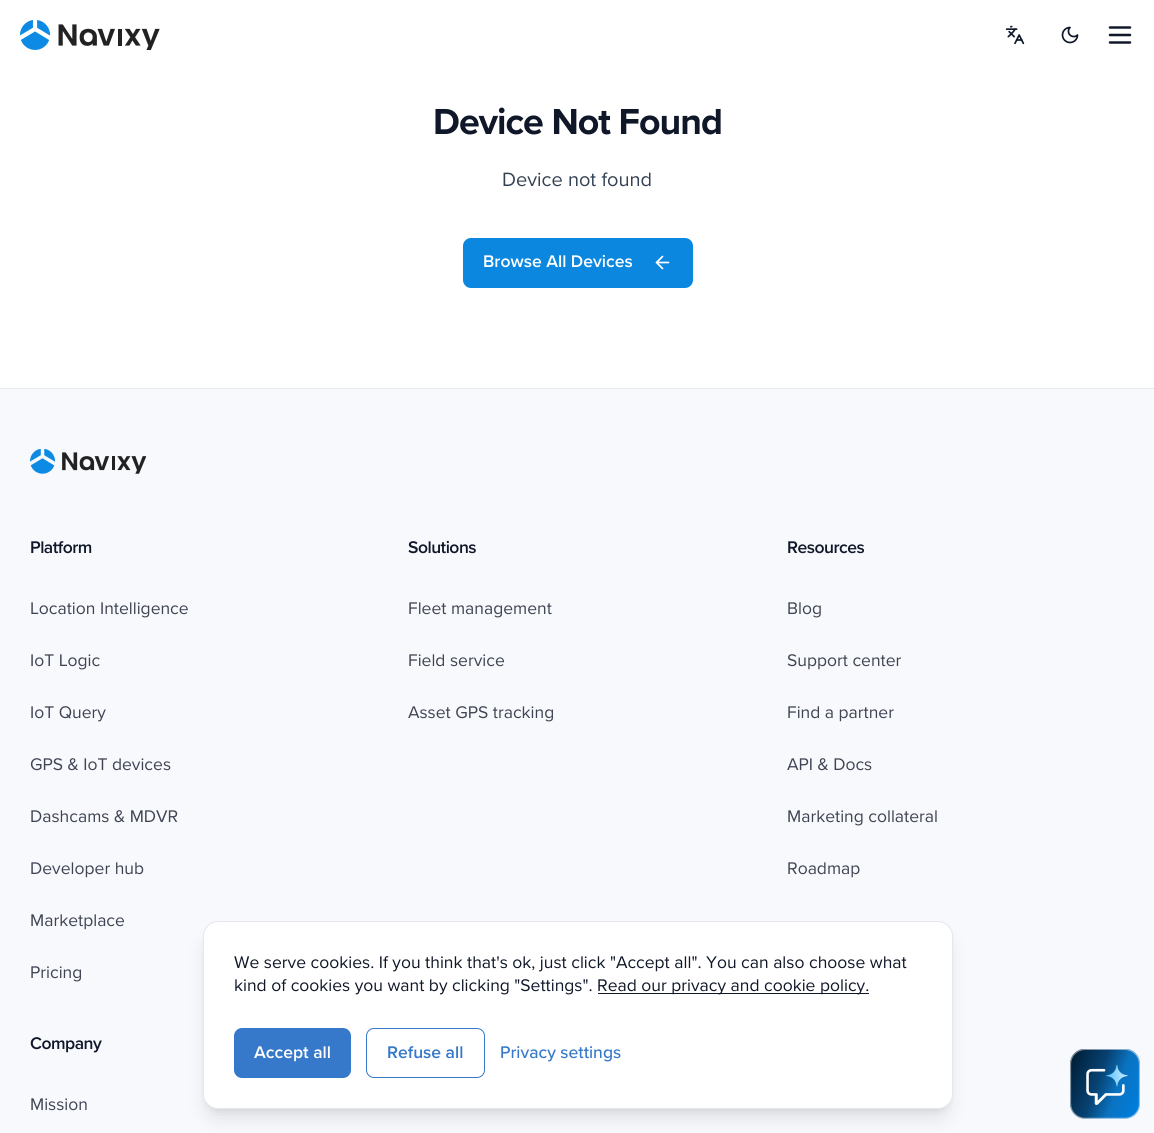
#include <cairo/cairo.h>
#include <math.h>
#include <stddef.h>

static cairo_t *cr;

static void use_color(int r, int g, int b) {
  cairo_set_source_rgb(cr, r / 255.0, g / 255.0, b / 255.0);
}

static void text(double x, double y, const char *s, const char *family, double size, int italic, int bold, int r, int g, int b) {
  cairo_select_font_face(cr, family, italic ? CAIRO_FONT_SLANT_ITALIC : CAIRO_FONT_SLANT_NORMAL,
    bold ? CAIRO_FONT_WEIGHT_BOLD : CAIRO_FONT_WEIGHT_NORMAL);
  cairo_set_font_size(cr, size);
  use_color(r, g, b);
  cairo_move_to(cr, x, y);
  cairo_show_text(cr, s);
}

static void spaced_text(double x, double y, const char *s, double letter, double word) {
  cairo_move_to(cr, x, y);
  while (*s) {
    char ch[5] = {0};
    int n = 0;
    do ch[n++] = *s++; while ((*s & 0xC0) == 0x80);
    cairo_show_text(cr, ch);
    cairo_rel_move_to(cr, letter + word * (*ch == ' '), 0);
  }
}

static void box(double x, double y, double w, double h, int r, int g, int b) {
  use_color(r, g, b);
  cairo_rectangle(cr, x, y, w, h);
  cairo_fill(cr);
}

static void round_rect(double x, double y, double w, double h, double r) {
  cairo_new_sub_path(cr);
  cairo_arc(cr, x + w - r, y + h - r, r, 0, M_PI / 2);
  cairo_arc(cr, x + r, y + h - r, r, M_PI / 2, M_PI);
  cairo_arc(cr, x + r, y + r, r, M_PI, 1.5 * M_PI);
  cairo_arc(cr, x + w - r, y + r, r, 1.5 * M_PI, 2 * M_PI);
  cairo_close_path(cr);
}

static void shadow(double x, double y, double w, double h, double r, double blur, double alpha) {
  cairo_push_group_with_content(cr, CAIRO_CONTENT_ALPHA);
  cairo_set_operator(cr, CAIRO_OPERATOR_SOURCE);
  for (int i = 15; i >= -15 && fmin(w, h) + blur * i / 3 > 0; i -= 2) {
    double e = blur * i / 6;
    cairo_set_source_rgba(cr, 0, 0, 0, alpha * erfc((i - 1) / 8.5) / 2);
    round_rect(x - e, y - e, w + 2 * e, h + 2 * e, fmax(0, fmin(r + e + blur * .6, fmin(w, h) / 2 + e)));
    cairo_fill(cr);
  }
  cairo_pattern_t *soft = cairo_pop_group(cr);
  cairo_mask(cr, soft);
  cairo_pattern_destroy(soft);
}

static void picture(const char *path, double x, double y, double w, double h) {
  cairo_surface_t *image = cairo_image_surface_create_from_png(path);
  cairo_save(cr);
  cairo_set_source_surface(cr, image, x, y);
  cairo_rectangle(cr, x, y, w, h);
  cairo_fill(cr);
  cairo_restore(cr);
  cairo_surface_destroy(image);
}

static void draw(void) {
  use_color(255, 255, 255);
  cairo_paint(cr);
  picture("img_01.png", 20, 20, 140, 30);
  picture("img_02.png", 1005, 25, 20, 20);
  picture("img_03.png", 1061, 26, 18, 18);
  cairo_new_path(cr);
  cairo_move_to(cr, 1110, 35);
  cairo_line_to(cr, 1130, 35);
  cairo_move_to(cr, 1110, 27.5);
  cairo_line_to(cr, 1130, 27.5);
  cairo_move_to(cr, 1110, 42.5);
  cairo_line_to(cr, 1130, 42.5);
  use_color(15, 23, 41);
  cairo_set_line_width(cr, 2.5);
  cairo_set_line_cap(cr, CAIRO_LINE_CAP_ROUND);
  cairo_set_line_join(cr, CAIRO_LINE_JOIN_ROUND);
  cairo_stroke(cr);
  use_color(11, 135, 224);
  round_rect(463, 238, 230, 50, 8);
  cairo_fill(cr);
  cairo_new_path(cr);
  cairo_move_to(cr, 662.5, 268.5);
  cairo_line_to(cr, 656.5, 262.5);
  cairo_line_to(cr, 662.5, 256.5);
  cairo_move_to(cr, 668.5, 262.5);
  cairo_line_to(cr, 656.5, 262.5);
  use_color(255, 255, 255);
  cairo_set_line_width(cr, 1.7);
  cairo_stroke(cr);
  box(0, 389, 1154, 744, 248, 249, 252);
  box(0, 388, 1154, 1, 230, 234, 240);
  picture("img_04.png", 30, 449, 116, 25);
  use_color(0, 0, 0);
  shadow(208, 931, 740, 178, 10, 4, 0.1);
  shadow(206, 938, 743, 180, 11, 9.5, 0.1);
  use_color(255, 255, 255);
  round_rect(203.5, 921.5, 749, 187, 14.5);
  cairo_fill_preserve(cr);
  use_color(229, 231, 235);
  cairo_set_line_width(cr, 1);
  cairo_set_line_cap(cr, CAIRO_LINE_CAP_BUTT);
  cairo_set_line_join(cr, CAIRO_LINE_JOIN_MITER);
  cairo_stroke(cr);
  box(598, 993, 271, 1, 15, 23, 41);
  use_color(54, 120, 201);
  round_rect(234, 1028, 117, 50, 8);
  cairo_fill(cr);
  round_rect(366.5, 1028.5, 118, 49, 7.5);
  cairo_stroke(cr);
  picture("img_05.png", 1070, 1049, 70, 70);
  round_rect(1070.5, 1049.5, 69, 69, 14.5);
  cairo_set_source_rgba(cr, 1, 1, 1, 0.3);
  cairo_stroke(cr);
  cairo_select_font_face(cr, "Proxima Nova", CAIRO_FONT_SLANT_NORMAL, CAIRO_FONT_WEIGHT_BOLD);
  cairo_set_font_size(cr, 37.5);
  use_color(15, 23, 41);
  spaced_text(433, 134, "Device Not Found", -1, 0);
  text(502, 186, "Device not found", "Proxima Nova", 20, 0, 0, 52, 66, 86);
  text(483, 267, "Browse All Devices", "Proxima Nova SemiBold", 17.5, 0, 0, 255, 255, 255);
  use_color(15, 23, 41);
  spaced_text(30, 553, "Platform", -0.5, 0);
  text(30, 614, "Location Intelligence", "Proxima Nova", 17.5, 0, 0, 62, 68, 83);
  text(30, 666, "IoT Logic", "Proxima Nova", 17.5, 0, 0, 62, 68, 83);
  text(30, 718, "IoT Query", "Proxima Nova", 17.5, 0, 0, 62, 68, 83);
  text(30, 770, "GPS & IoT devices", "Proxima Nova", 17.5, 0, 0, 62, 68, 83);
  text(30, 822, "Dashcams & MDVR", "Proxima Nova", 17.5, 0, 0, 62, 68, 83);
  text(30, 874, "Developer hub", "Proxima Nova", 17.5, 0, 0, 62, 68, 83);
  text(30, 926, "Marketplace", "Proxima Nova", 17.5, 0, 0, 62, 68, 83);
  text(30, 978, "Pricing", "Proxima Nova", 17.5, 0, 0, 62, 68, 83);
  cairo_select_font_face(cr, "Proxima Nova SemiBold", CAIRO_FONT_SLANT_NORMAL, CAIRO_FONT_WEIGHT_NORMAL);
  use_color(15, 23, 41);
  spaced_text(408, 553, "Solutions", -0.5, 0);
  text(408, 614, "Fleet management", "Proxima Nova", 17.5, 0, 0, 62, 68, 83);
  text(408, 666, "Field service", "Proxima Nova", 17.5, 0, 0, 62, 68, 83);
  text(408, 718, "Asset GPS tracking", "Proxima Nova", 17.5, 0, 0, 62, 68, 83);
  cairo_select_font_face(cr, "Proxima Nova SemiBold", CAIRO_FONT_SLANT_NORMAL, CAIRO_FONT_WEIGHT_NORMAL);
  use_color(15, 23, 41);
  spaced_text(787, 553, "Resources", -0.5, 0);
  text(787, 614, "Blog", "Proxima Nova", 17.5, 0, 0, 62, 68, 83);
  text(787, 666, "Support center", "Proxima Nova", 17.5, 0, 0, 62, 68, 83);
  text(787, 718, "Find a partner", "Proxima Nova", 17.5, 0, 0, 62, 68, 83);
  text(787, 770, "API & Docs", "Proxima Nova", 17.5, 0, 0, 62, 68, 83);
  text(787, 822, "Marketing collateral", "Proxima Nova", 17.5, 0, 0, 62, 68, 83);
  text(787, 874, "Roadmap", "Proxima Nova", 17.5, 0, 0, 62, 68, 83);
  cairo_select_font_face(cr, "Proxima Nova SemiBold", CAIRO_FONT_SLANT_NORMAL, CAIRO_FONT_WEIGHT_NORMAL);
  use_color(15, 23, 41);
  spaced_text(30, 1049, "Company", -0.5, 0);
  text(30, 1110, "Mission", "Proxima Nova", 17.5, 0, 0, 62, 68, 83);
  text(234, 968, "We serve cookies. If you think that's ok, just click \"Accept all\". You can also choose what", "Proxima Nova", 17.5, 0, 0, 15, 23, 41);
  text(234, 991, "kind of cookies you want by clicking \"Settings\".", "Proxima Nova", 17.5, 0, 0, 15, 23, 41);
  text(597, 991, "Read our privacy and cookie policy.", "Proxima Nova", 17.5, 0, 0, 15, 23, 41);
  text(254, 1058, "Accept all", "Proxima Nova SemiBold", 17.5, 0, 0, 255, 255, 255);
  text(387, 1058, "Refuse all", "Proxima Nova SemiBold", 17.5, 0, 0, 54, 120, 201);
  text(500, 1058, "Privacy settings", "Proxima Nova Medium", 17.5, 0, 0, 54, 120, 201);
}

int main(void) {
  cairo_surface_t *surface = cairo_image_surface_create(CAIRO_FORMAT_RGB24, 1154, 1133);
  cr = cairo_create(surface);
  cairo_font_options_t *options = cairo_font_options_create();
  cairo_font_options_set_hint_metrics(options, CAIRO_HINT_METRICS_OFF);
  cairo_font_options_set_hint_style(options, CAIRO_HINT_STYLE_NONE);
  cairo_set_font_options(cr, options);
  cairo_set_miter_limit(cr, 4);
  draw();
  cairo_surface_write_to_png(surface, "out.png");
  cairo_font_options_destroy(options);
  cairo_destroy(cr);
  cairo_surface_destroy(surface);
  return 0;
}
